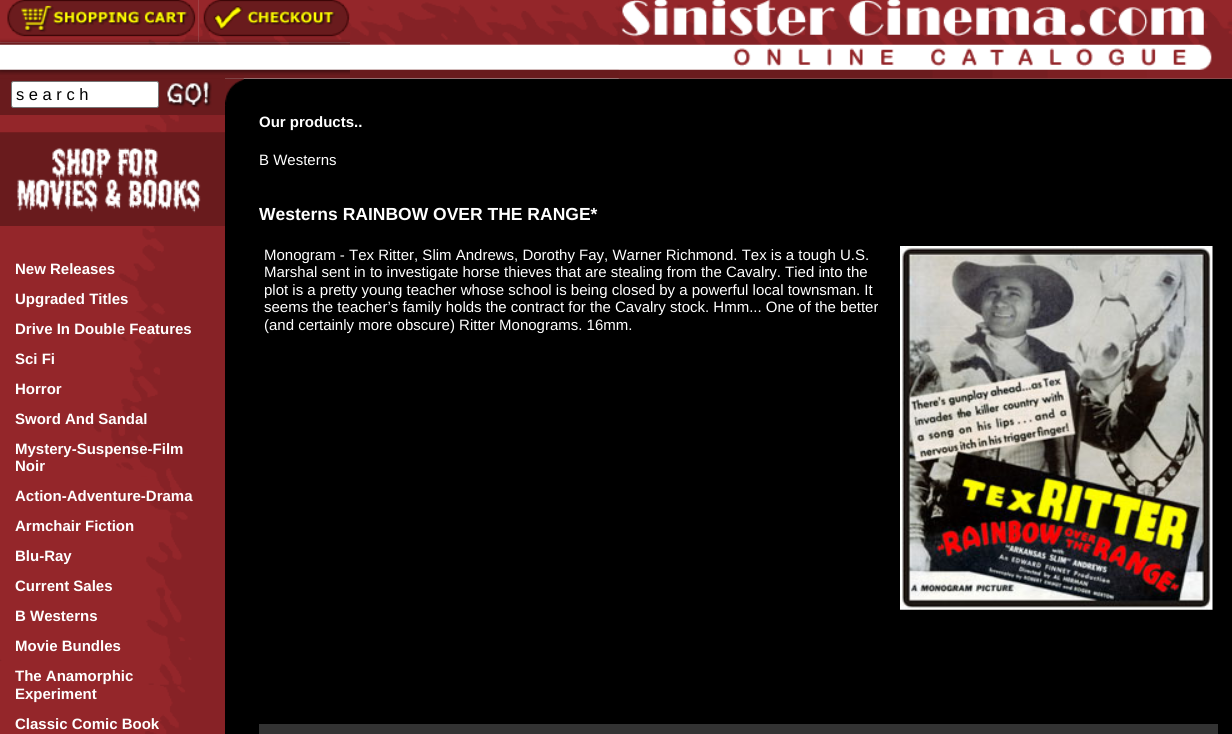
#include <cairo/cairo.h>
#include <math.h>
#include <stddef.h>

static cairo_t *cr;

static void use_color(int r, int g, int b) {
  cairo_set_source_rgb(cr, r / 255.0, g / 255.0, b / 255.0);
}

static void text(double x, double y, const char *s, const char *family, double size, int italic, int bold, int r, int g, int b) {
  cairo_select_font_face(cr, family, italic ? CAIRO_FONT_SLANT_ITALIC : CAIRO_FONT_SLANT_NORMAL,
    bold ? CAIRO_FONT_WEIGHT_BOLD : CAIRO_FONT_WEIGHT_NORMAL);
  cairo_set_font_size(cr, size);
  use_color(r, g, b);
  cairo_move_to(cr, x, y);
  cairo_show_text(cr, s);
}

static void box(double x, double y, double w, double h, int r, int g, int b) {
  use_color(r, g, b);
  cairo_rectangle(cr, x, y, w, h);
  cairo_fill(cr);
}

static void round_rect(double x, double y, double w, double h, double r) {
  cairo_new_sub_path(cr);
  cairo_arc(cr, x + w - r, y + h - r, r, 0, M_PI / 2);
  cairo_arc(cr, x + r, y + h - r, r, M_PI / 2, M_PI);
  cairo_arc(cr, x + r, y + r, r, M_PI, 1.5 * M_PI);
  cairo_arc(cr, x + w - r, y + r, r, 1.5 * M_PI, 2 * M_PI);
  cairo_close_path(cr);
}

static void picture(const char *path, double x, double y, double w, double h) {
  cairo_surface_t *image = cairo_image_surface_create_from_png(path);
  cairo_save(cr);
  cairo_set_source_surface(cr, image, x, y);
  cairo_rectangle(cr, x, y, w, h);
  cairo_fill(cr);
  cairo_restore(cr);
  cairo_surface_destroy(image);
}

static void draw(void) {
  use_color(192, 192, 192);
  cairo_paint(cr);
  picture("img_01.png", 0, 0, 199, 43);
  picture("img_02.png", 198, 0, 152, 43);
  box(0, 78, 225, 37, 105, 27, 29);
  picture("img_03.png", 0, 42, 350, 37);
  picture("img_04.png", 350, 0, 882, 79);
  picture("img_05.png", 618, 0, 614, 79);
  box(225, 79, 1007, 655, 0, 0, 0);
  picture("img_06.png", 0, 115, 225, 619);
  use_color(255, 255, 255);
  round_rect(11.5, 81.5, 147, 26, 2);
  cairo_fill_preserve(cr);
  use_color(118, 118, 118);
  cairo_set_line_width(cr, 1);
  cairo_stroke(cr);
  picture("img_07.png", 166, 81, 46, 27);
  picture("img_08.png", 0, 132, 225, 94);
  picture("img_09.png", 225, 78, 19, 28);
  picture("img_10.png", 900, 246, 313, 364);
  box(259, 724, 959, 10, 51, 51, 51);
  text(16, 100, "s e a r c h", "Liberation Sans", 16.5, 0, 0, 0, 0, 0);
  text(15, 274, "New Releases", "Liberation Sans", 15, 0, 1, 255, 255, 255);
  text(15, 304, "Upgraded Titles", "Liberation Sans", 15, 0, 1, 255, 255, 255);
  text(15, 334, "Drive In Double Features", "Liberation Sans", 15, 0, 1, 255, 255, 255);
  text(15, 364, "Sci Fi", "Liberation Sans", 15, 0, 1, 255, 255, 255);
  text(15, 394, "Horror", "Liberation Sans", 15, 0, 1, 255, 255, 255);
  text(15, 424, "Sword And Sandal", "Liberation Sans", 15, 0, 1, 255, 255, 255);
  text(15, 454, "Mystery-Suspense-Film", "Liberation Sans", 15, 0, 1, 255, 255, 255);
  text(15, 471, "Noir", "Liberation Sans", 15, 0, 1, 255, 255, 255);
  text(15, 501, "Action-Adventure-Drama", "Liberation Sans", 15, 0, 1, 255, 255, 255);
  text(15, 531, "Armchair Fiction", "Liberation Sans", 15, 0, 1, 255, 255, 255);
  text(15, 561, "Blu-Ray", "Liberation Sans", 15, 0, 1, 255, 255, 255);
  text(15, 591, "Current Sales", "Liberation Sans", 15, 0, 1, 255, 255, 255);
  text(15, 621, "B Westerns", "Liberation Sans", 15, 0, 1, 255, 255, 255);
  text(15, 651, "Movie Bundles", "Liberation Sans", 15, 0, 1, 255, 255, 255);
  text(15, 681, "The Anamorphic", "Liberation Sans", 15, 0, 1, 255, 255, 255);
  text(15, 699, "Experiment", "Liberation Sans", 15, 0, 1, 255, 255, 255);
  text(15, 729, "Classic Comic Book", "Liberation Sans", 15, 0, 1, 255, 255, 255);
  text(259, 127, "Our products..", "Liberation Sans", 15, 0, 1, 255, 255, 255);
  text(259, 165, "B Westerns", "Liberation Sans", 15, 0, 0, 255, 255, 255);
  text(259, 220, "Westerns RAINBOW OVER THE RANGE*", "Liberation Sans", 17.5, 0, 1, 255, 255, 255);
  text(264, 260, "Monogram - Tex Ritter, Slim Andrews, Dorothy Fay, Warner Richmond. Tex is a tough U.S.", "Liberation Sans", 15, 0, 0, 255, 255, 255);
  text(264, 277, "Marshal sent in to investigate horse thieves that are stealing from the Cavalry. Tied into the", "Liberation Sans", 15, 0, 0, 255, 255, 255);
  text(264, 295, "plot is a pretty young teacher whose school is being closed by a powerful local townsman. It", "Liberation Sans", 15, 0, 0, 255, 255, 255);
  text(264, 312, "seems the teacher’s family holds the contract for the Cavalry stock. Hmm... One of the better", "Liberation Sans", 15, 0, 0, 255, 255, 255);
  text(264, 330, "(and certainly more obscure) Ritter Monograms. 16mm.", "Liberation Sans", 15, 0, 0, 255, 255, 255);
}

int main(void) {
  cairo_surface_t *surface = cairo_image_surface_create(CAIRO_FORMAT_RGB24, 1232, 734);
  cr = cairo_create(surface);
  cairo_font_options_t *options = cairo_font_options_create();
  cairo_font_options_set_hint_metrics(options, CAIRO_HINT_METRICS_OFF);
  cairo_font_options_set_hint_style(options, CAIRO_HINT_STYLE_NONE);
  cairo_set_font_options(cr, options);
  cairo_set_miter_limit(cr, 4);
  draw();
  cairo_surface_write_to_png(surface, "out.png");
  cairo_font_options_destroy(options);
  cairo_destroy(cr);
  cairo_surface_destroy(surface);
  return 0;
}
